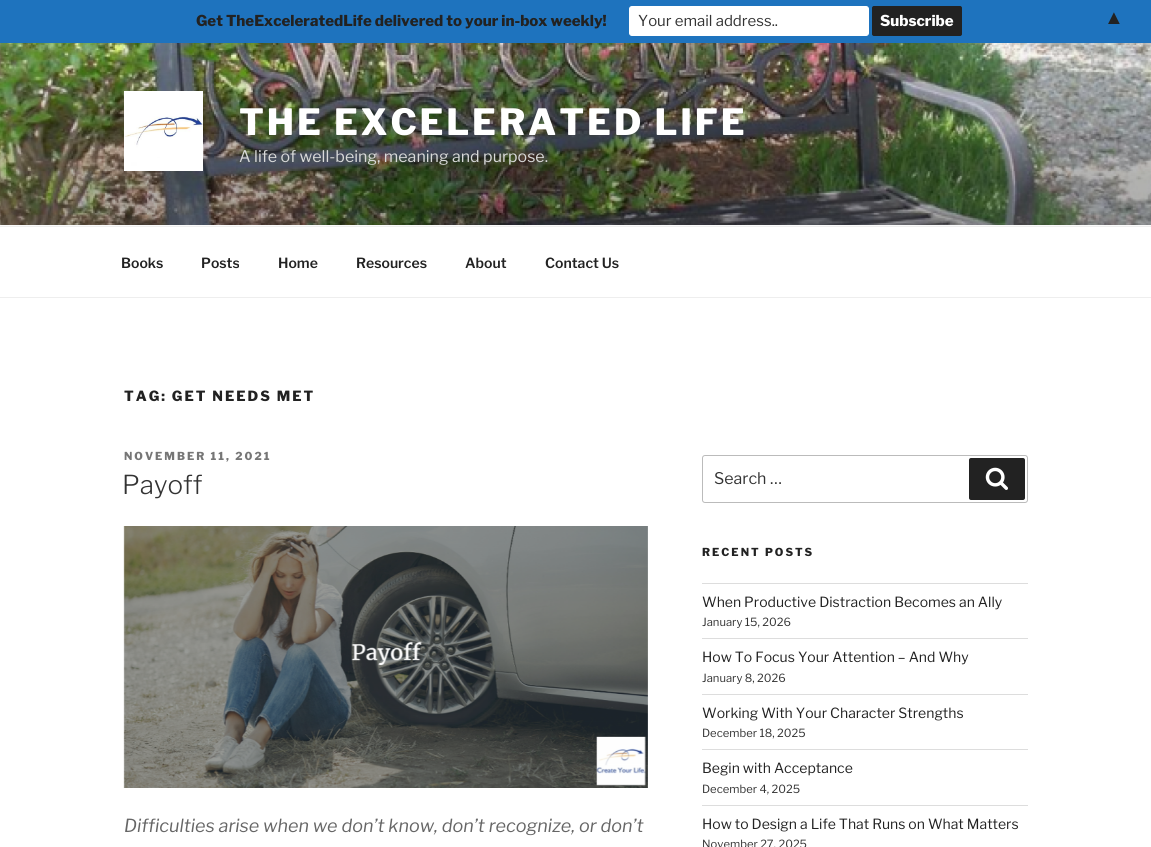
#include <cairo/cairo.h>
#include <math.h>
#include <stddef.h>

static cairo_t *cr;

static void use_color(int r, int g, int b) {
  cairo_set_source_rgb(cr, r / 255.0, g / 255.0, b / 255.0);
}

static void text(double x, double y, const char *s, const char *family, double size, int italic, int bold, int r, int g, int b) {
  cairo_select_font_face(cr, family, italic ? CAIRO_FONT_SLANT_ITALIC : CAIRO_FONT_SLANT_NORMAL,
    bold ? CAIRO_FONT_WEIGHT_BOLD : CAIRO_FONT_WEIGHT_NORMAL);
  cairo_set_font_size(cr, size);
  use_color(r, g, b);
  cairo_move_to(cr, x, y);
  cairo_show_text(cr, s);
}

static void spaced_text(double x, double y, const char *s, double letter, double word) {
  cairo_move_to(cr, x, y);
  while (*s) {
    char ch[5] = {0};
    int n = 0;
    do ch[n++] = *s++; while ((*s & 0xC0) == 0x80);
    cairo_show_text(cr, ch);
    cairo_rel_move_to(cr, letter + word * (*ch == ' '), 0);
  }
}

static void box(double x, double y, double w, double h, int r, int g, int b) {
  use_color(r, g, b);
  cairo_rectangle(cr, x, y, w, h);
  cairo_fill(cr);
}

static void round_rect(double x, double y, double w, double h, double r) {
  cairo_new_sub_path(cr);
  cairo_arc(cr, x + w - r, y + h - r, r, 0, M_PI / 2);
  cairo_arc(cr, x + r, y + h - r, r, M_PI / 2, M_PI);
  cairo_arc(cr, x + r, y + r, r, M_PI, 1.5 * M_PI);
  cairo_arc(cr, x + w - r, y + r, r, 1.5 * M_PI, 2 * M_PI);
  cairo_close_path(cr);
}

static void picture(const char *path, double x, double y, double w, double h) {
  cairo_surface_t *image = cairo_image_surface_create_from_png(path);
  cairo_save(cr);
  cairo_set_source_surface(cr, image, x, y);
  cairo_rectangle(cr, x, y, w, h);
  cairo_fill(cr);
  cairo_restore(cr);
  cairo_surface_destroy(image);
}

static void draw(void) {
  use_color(255, 255, 255);
  cairo_paint(cr);
  box(0, 0, 1151, 43, 30, 115, 190);
  use_color(255, 255, 255);
  round_rect(629.5, 6.5, 239, 29, 2.5);
  cairo_fill_preserve(cr);
  cairo_set_line_width(cr, 1);
  cairo_stroke(cr);
  use_color(34, 34, 34);
  round_rect(872.5, 6.5, 89, 29, 1.5);
  cairo_fill_preserve(cr);
  cairo_stroke(cr);
  box(0, 225, 1151, 1, 250, 250, 250);
  picture("img_01.png", 0, 43, 1151, 182);
  picture("img_02.png", 124, 91, 79, 80);
  box(0, 226, 1151, 1, 238, 238, 238);
  box(0, 297, 1151, 1, 238, 238, 238);
  picture("img_03.png", 123, 526, 525, 262);
  round_rect(702.5, 455.5, 325, 47, 2.5);
  use_color(187, 187, 187);
  cairo_stroke(cr);
  use_color(34, 34, 34);
  round_rect(969, 458, 56, 42, 2);
  cairo_fill(cr);
  picture("img_04.png", 985, 467, 23, 23);
  box(702, 583, 326, 1, 221, 221, 221);
  box(702, 638, 326, 1, 221, 221, 221);
  box(702, 694, 326, 1, 221, 221, 221);
  box(702, 749, 326, 1, 221, 221, 221);
  box(702, 805, 326, 1, 221, 221, 221);
  text(196, 26, "Get TheExceleratedLife delivered to your in-box weekly!", "Libre Franklin Thin", 15, 0, 0, 34, 34, 34);
  text(638, 26, "Your email address..", "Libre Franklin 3 Thin", 15, 0, 0, 51, 51, 51);
  text(880, 26, "Subscribe", "Libre Franklin Thin", 15, 0, 0, 255, 255, 255);
  text(1104, 24, "▲", "Liberation Sans", 20, 0, 0, 34, 34, 34);
  cairo_select_font_face(cr, "Libre Franklin Thin", CAIRO_FONT_SLANT_NORMAL, CAIRO_FONT_WEIGHT_NORMAL);
  cairo_set_font_size(cr, 36);
  use_color(255, 255, 255);
  spaced_text(239, 135, "THE EXCELERATED LIFE", 2.9, 0);
  text(239, 162, "A life of well-being, meaning and purpose.", "Libre Franklin 3 Thin", 16, 0, 0, 217, 218, 218);
  text(121, 268, "Books", "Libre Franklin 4 Thin", 14, 0, 0, 34, 34, 34);
  text(201, 268, "Posts", "Libre Franklin 4 Thin", 14, 0, 0, 34, 34, 34);
  text(278, 268, "Home", "Libre Franklin 4 Thin", 14, 0, 0, 34, 34, 34);
  text(356, 268, "Resources", "Libre Franklin 4 Thin", 14, 0, 0, 34, 34, 34);
  text(465, 268, "About", "Libre Franklin 4 Thin", 14, 0, 0, 34, 34, 34);
  text(545, 268, "Contact Us", "Libre Franklin 4 Thin", 14, 0, 0, 34, 34, 34);
  cairo_select_font_face(cr, "Libre Franklin Thin", CAIRO_FONT_SLANT_NORMAL, CAIRO_FONT_WEIGHT_NORMAL);
  spaced_text(124, 401, "TAG: GET NEEDS MET", 2, 0);
  cairo_set_font_size(cr, 11);
  use_color(118, 118, 118);
  spaced_text(124, 460, "NOVEMBER 11, 2021", 2, 0);
  text(122, 494, "Payoff", "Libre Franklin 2 Thin", 26, 0, 0, 51, 51, 51);
  text(124, 832, "Difficulties arise when we don’t know, don’t recognize, or don’t", "Libre Franklin Thin", 18, 1, 0, 102, 102, 102);
  text(714, 484, "Search …", "Libre Franklin 3 Thin", 16, 0, 0, 51, 51, 51);
  cairo_select_font_face(cr, "Libre Franklin Thin", CAIRO_FONT_SLANT_NORMAL, CAIRO_FONT_WEIGHT_NORMAL);
  cairo_set_font_size(cr, 11);
  use_color(34, 34, 34);
  spaced_text(702, 556, "RECENT POSTS", 2, 0);
  text(702, 607, "When Productive Distraction Becomes an Ally", "Libre Franklin 3 Thin", 14, 0, 0, 34, 34, 34);
  text(702, 626, "January 15, 2026", "Libre Franklin 3 Thin", 11.25, 0, 0, 51, 51, 51);
  text(702, 662, "How To Focus Your Attention – And Why", "Libre Franklin 3 Thin", 14, 0, 0, 34, 34, 34);
  text(702, 682, "January 8, 2026", "Libre Franklin 3 Thin", 11.25, 0, 0, 51, 51, 51);
  text(702, 718, "Working With Your Character Strengths", "Libre Franklin 3 Thin", 14, 0, 0, 34, 34, 34);
  text(702, 737, "December 18, 2025", "Libre Franklin 3 Thin", 11.25, 0, 0, 51, 51, 51);
  text(702, 773, "Begin with Acceptance", "Libre Franklin 3 Thin", 14, 0, 0, 34, 34, 34);
  text(702, 793, "December 4, 2025", "Libre Franklin 3 Thin", 11.25, 0, 0, 51, 51, 51);
  text(702, 829, "How to Design a Life That Runs on What Matters", "Libre Franklin 3 Thin", 14, 0, 0, 34, 34, 34);
  text(702, 848, "November 27, 2025", "Libre Franklin 3 Thin", 11.25, 0, 0, 51, 51, 51);
}

int main(void) {
  cairo_surface_t *surface = cairo_image_surface_create(CAIRO_FORMAT_RGB24, 1151, 847);
  cr = cairo_create(surface);
  cairo_font_options_t *options = cairo_font_options_create();
  cairo_font_options_set_hint_metrics(options, CAIRO_HINT_METRICS_OFF);
  cairo_font_options_set_hint_style(options, CAIRO_HINT_STYLE_NONE);
  cairo_set_font_options(cr, options);
  cairo_set_miter_limit(cr, 4);
  draw();
  cairo_surface_write_to_png(surface, "out.png");
  cairo_font_options_destroy(options);
  cairo_destroy(cr);
  cairo_surface_destroy(surface);
  return 0;
}
